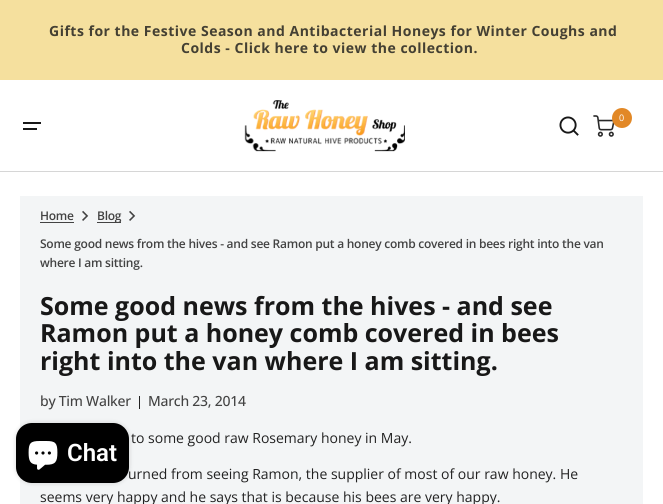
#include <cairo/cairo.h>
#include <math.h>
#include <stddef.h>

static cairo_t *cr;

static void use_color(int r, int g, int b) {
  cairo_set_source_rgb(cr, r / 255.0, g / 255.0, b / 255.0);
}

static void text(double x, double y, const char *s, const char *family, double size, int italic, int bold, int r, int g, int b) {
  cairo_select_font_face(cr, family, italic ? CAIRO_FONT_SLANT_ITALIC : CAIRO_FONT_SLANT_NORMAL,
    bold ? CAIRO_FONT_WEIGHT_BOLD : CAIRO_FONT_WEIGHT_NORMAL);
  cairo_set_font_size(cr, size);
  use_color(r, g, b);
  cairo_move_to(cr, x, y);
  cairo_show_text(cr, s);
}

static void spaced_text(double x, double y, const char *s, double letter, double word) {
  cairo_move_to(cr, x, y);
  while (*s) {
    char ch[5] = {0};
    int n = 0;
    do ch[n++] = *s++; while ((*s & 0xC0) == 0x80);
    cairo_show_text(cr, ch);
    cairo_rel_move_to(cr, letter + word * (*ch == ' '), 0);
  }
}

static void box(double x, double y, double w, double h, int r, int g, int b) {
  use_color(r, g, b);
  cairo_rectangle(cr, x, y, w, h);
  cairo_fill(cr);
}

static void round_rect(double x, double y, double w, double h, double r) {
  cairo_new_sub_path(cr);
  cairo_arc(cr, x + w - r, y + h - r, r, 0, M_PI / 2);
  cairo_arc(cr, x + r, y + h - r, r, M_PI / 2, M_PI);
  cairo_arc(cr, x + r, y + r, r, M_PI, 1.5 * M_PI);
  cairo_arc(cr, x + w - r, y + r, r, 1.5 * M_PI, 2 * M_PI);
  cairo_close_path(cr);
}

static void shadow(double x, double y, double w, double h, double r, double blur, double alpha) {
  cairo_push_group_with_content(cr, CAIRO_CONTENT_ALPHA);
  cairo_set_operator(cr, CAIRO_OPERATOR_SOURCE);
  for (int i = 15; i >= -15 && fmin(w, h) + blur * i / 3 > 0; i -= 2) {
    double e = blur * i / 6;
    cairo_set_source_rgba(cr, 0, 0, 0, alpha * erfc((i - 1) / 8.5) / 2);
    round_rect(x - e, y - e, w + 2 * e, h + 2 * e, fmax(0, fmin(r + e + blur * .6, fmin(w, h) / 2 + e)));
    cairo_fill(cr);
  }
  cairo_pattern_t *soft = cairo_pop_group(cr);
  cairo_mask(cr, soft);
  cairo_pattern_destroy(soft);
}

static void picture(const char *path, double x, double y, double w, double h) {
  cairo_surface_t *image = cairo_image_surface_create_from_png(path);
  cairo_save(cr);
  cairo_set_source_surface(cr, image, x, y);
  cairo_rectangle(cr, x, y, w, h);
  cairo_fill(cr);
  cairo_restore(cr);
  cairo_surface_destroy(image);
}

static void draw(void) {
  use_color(255, 255, 255);
  cairo_paint(cr);
  box(0, 0, 663, 80, 245, 224, 158);
  picture("img_01.png", 244, 100, 161, 52);
  picture("img_02.png", 559, 116, 20, 20);
  picture("img_03.png", 593, 115, 22, 22);
  use_color(226, 136, 38);
  cairo_arc(cr, 622, 118, 10, 0, 2 * M_PI);
  cairo_fill(cr);
  box(23, 122, 18, 2, 24, 24, 24);
  box(23, 128, 14, 2, 24, 24, 24);
  box(0, 171, 663, 1, 214, 214, 214);
  box(20, 196, 623, 308, 243, 245, 246);
  box(40, 222, 34, 1, 67, 67, 67);
  picture("img_04.png", 82, 210, 7, 11);
  box(97, 222, 24, 1, 67, 67, 67);
  picture("img_04.png", 129, 210, 7, 11);
  box(139, 396, 1, 13, 34, 34, 34);
  use_color(0, 0, 0);
  shadow(16, 423, 113, 60, 16, 2.5, 0.15);
  use_color(0, 0, 0);
  round_rect(16, 423, 113, 60, 16);
  cairo_fill(cr);
  picture("img_05.png", 28, 441, 30, 29);
  cairo_select_font_face(cr, "Open Sans", CAIRO_FONT_SLANT_NORMAL, CAIRO_FONT_WEIGHT_BOLD);
  cairo_set_font_size(cr, 14);
  use_color(68, 64, 51);
  spaced_text(49, 36, "Gifts for the Festive Season and Antibacterial Honeys for Winter Coughs and", 0.5, 0);
  spaced_text(181, 53, "Colds - Click here to view the collection.", 0.5, 0);
  text(619, 121, "0", "Open Sans", 9, 0, 0, 255, 255, 255);
  cairo_select_font_face(cr, "Open Sans SemiBold", CAIRO_FONT_SLANT_NORMAL, CAIRO_FONT_WEIGHT_NORMAL);
  cairo_set_font_size(cr, 12);
  use_color(67, 67, 67);
  spaced_text(40, 220, "Home", -0.25, 0);
  spaced_text(97, 220, "Blog", -0.25, 0);
  spaced_text(40, 248, "Some good news from the hives - and see Ramon put a honey comb covered in bees right into the van", -0.25, 0);
  spaced_text(40, 267, "where I am sitting.", -0.25, 0);
  text(40, 315, "Some good news from the hives - and see", "Open Sans", 25, 0, 1, 24, 24, 24);
  text(40, 342, "Ramon put a honey comb covered in bees", "Open Sans", 25, 0, 1, 24, 24, 24);
  text(40, 370, "right into the van where I am sitting.", "Open Sans", 25, 0, 1, 24, 24, 24);
  cairo_select_font_face(cr, "Open Sans Medium", CAIRO_FONT_SLANT_NORMAL, CAIRO_FONT_WEIGHT_NORMAL);
  cairo_set_font_size(cr, 14);
  use_color(67, 67, 67);
  spaced_text(40, 406, "by Tim Walker", -0.25, 0);
  spaced_text(148, 406, "March 23, 2014", -0.25, 0);
  text(131, 443, "to some good raw Rosemary honey in May.", "Open Sans", 14, 0, 0, 34, 34, 34);
  text(128, 479, "urned from seeing Ramon, the supplier of most of our raw honey. He", "Open Sans", 14, 0, 0, 34, 34, 34);
  text(40, 502, "seems very happy and he says that is because his bees are very happy.", "Open Sans", 14, 0, 0, 34, 34, 34);
  text(67, 461, "Chat", "Roboto SemiBold", 24, 0, 0, 255, 255, 255);
}

int main(void) {
  cairo_surface_t *surface = cairo_image_surface_create(CAIRO_FORMAT_RGB24, 663, 504);
  cr = cairo_create(surface);
  cairo_font_options_t *options = cairo_font_options_create();
  cairo_font_options_set_hint_metrics(options, CAIRO_HINT_METRICS_OFF);
  cairo_font_options_set_hint_style(options, CAIRO_HINT_STYLE_NONE);
  cairo_set_font_options(cr, options);
  cairo_set_miter_limit(cr, 4);
  draw();
  cairo_surface_write_to_png(surface, "out.png");
  cairo_font_options_destroy(options);
  cairo_destroy(cr);
  cairo_surface_destroy(surface);
  return 0;
}
